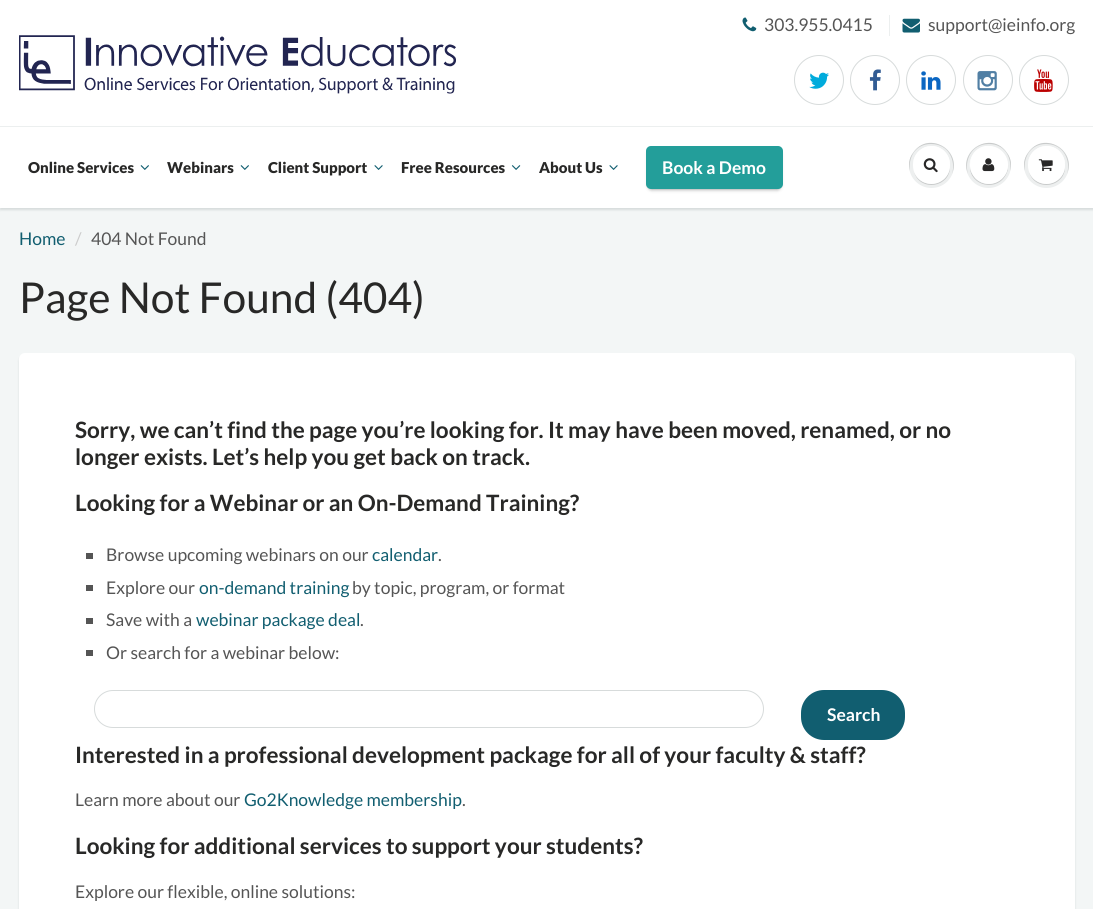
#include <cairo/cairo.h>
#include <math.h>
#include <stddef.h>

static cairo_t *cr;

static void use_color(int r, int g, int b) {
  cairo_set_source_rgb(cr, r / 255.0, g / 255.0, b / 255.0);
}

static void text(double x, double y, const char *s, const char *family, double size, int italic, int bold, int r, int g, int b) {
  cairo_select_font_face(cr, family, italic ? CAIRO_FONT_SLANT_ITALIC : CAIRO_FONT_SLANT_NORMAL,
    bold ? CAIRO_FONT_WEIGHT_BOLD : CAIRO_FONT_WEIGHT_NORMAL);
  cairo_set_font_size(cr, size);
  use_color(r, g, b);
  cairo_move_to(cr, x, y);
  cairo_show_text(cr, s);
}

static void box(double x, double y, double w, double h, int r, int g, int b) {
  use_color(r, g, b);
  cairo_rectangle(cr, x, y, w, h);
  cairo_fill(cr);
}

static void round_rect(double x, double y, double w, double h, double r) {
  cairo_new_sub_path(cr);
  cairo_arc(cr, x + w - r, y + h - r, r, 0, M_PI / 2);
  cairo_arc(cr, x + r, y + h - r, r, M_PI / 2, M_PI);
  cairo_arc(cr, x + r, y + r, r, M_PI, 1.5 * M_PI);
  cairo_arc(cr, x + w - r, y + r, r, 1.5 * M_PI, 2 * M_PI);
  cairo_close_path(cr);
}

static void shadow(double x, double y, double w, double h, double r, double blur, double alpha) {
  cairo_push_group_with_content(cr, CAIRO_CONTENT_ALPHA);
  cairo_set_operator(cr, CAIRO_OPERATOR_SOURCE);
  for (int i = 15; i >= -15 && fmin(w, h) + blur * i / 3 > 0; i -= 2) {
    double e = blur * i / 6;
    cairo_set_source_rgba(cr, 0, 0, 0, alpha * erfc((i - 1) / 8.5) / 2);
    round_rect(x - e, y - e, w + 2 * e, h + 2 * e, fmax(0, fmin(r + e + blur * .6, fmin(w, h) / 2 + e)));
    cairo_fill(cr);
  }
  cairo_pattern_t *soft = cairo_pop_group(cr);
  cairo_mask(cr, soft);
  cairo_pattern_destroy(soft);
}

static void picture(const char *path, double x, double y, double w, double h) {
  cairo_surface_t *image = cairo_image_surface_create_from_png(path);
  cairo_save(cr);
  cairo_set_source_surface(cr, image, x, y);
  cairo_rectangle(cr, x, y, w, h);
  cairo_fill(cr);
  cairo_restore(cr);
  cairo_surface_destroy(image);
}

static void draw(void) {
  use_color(255, 255, 255);
  cairo_paint(cr);
  picture("img_01.png", 742, 17, 15, 15);
  box(889, 15, 1, 21, 236, 239, 239);
  picture("img_02.png", 902, 18, 18, 15);
  cairo_arc(cr, 819, 80, 24.5, 0, 2 * M_PI);
  use_color(215, 219, 219);
  cairo_set_line_width(cr, 1);
  cairo_stroke(cr);
  picture("img_03.png", 809, 72, 20, 17);
  cairo_arc(cr, 875, 80, 24.5, 0, 2 * M_PI);
  cairo_stroke(cr);
  picture("img_04.png", 869, 69, 12, 22);
  cairo_arc(cr, 931, 80, 24.5, 0, 2 * M_PI);
  cairo_stroke(cr);
  picture("img_05.png", 921, 71, 20, 19);
  cairo_arc(cr, 988, 80, 24.5, 0, 2 * M_PI);
  cairo_stroke(cr);
  picture("img_06.png", 977, 71, 20, 20);
  cairo_arc(cr, 1044, 80, 24.5, 0, 2 * M_PI);
  cairo_stroke(cr);
  picture("img_07.png", 1034, 69, 19, 23);
  picture("img_08.png", 19, 35, 437, 59);
  box(0, 208, 1093, 701, 243, 246, 246);
  cairo_save(cr);
  cairo_set_fill_rule(cr, CAIRO_FILL_RULE_EVEN_ODD);
  cairo_new_path(cr);
  cairo_move_to(cr, 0, 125);
  cairo_line_to(cr, 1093, 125);
  cairo_line_to(cr, 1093, 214);
  cairo_line_to(cr, 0, 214);
  cairo_close_path(cr);
  cairo_move_to(cr, 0, 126);
  cairo_line_to(cr, 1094, 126);
  cairo_line_to(cr, 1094, 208);
  cairo_line_to(cr, 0, 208);
  cairo_close_path(cr);
  cairo_clip(cr);
  use_color(11, 25, 28);
  shadow(0, 129, 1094, 81, 0, 1, 0.12);
  cairo_restore(cr);
  box(0, 126, 1093, 1, 236, 239, 239);
  picture("img_09.png", 140, 165, 9, 5);
  picture("img_09.png", 240, 165, 9, 5);
  picture("img_10.png", 374, 165, 9, 5);
  picture("img_11.png", 511, 165, 10, 5);
  picture("img_10.png", 609, 165, 9, 5);
  use_color(0, 0, 0);
  shadow(649, 151, 131, 38, 2.5, 2, 0.5);
  use_color(35, 158, 154);
  round_rect(646, 146, 137, 43, 5);
  cairo_fill(cr);
  use_color(237, 239, 239);
  cairo_arc(cr, 931.5, 165.5, 22.5, 0, 2 * M_PI);
  cairo_fill(cr);
  use_color(201, 203, 203);
  cairo_new_path(cr);
  cairo_move_to(cr, 931, 144);
  cairo_curve_to(cr, 949, 144, 956, 161, 952, 174);
  cairo_curve_to(cr, 962, 150, 928, 130, 913, 153);
  cairo_curve_to(cr, 909, 158, 908, 165, 910, 171);
  cairo_curve_to(cr, 908, 158, 915, 144, 931, 144);
  cairo_close_path(cr);
  cairo_fill(cr);
  cairo_new_path(cr);
  cairo_move_to(cr, 914, 172);
  cairo_curve_to(cr, 920, 192.5, 951, 187.5, 950, 166);
  cairo_curve_to(cr, 949, 186, 921, 190.5, 914, 172);
  cairo_close_path(cr);
  cairo_fill(cr);
  use_color(255, 255, 255);
  round_rect(913, 146, 37, 38, 18.5);
  cairo_fill(cr);
  cairo_new_path(cr);
  cairo_move_to(cr, 931, 148);
  cairo_curve_to(cr, 945, 148, 951, 159.5, 949.5, 170);
  cairo_curve_to(cr, 950.5, 166, 950, 161, 948.5, 157.5);
  cairo_curve_to(cr, 940.5, 138.5, 912.5, 144.5, 913, 166);
  cairo_curve_to(cr, 913, 157, 919, 148, 931, 148);
  cairo_close_path(cr);
  cairo_fill(cr);
  picture("img_12.png", 923, 158, 15, 15);
  use_color(237, 239, 239);
  cairo_arc(cr, 988.5, 165.5, 22.5, 0, 2 * M_PI);
  cairo_fill(cr);
  use_color(201, 203, 203);
  cairo_new_path(cr);
  cairo_move_to(cr, 989, 144);
  cairo_curve_to(cr, 1005, 144, 1012, 158, 1010, 171);
  cairo_curve_to(cr, 1012, 165, 1011, 158, 1007, 153);
  cairo_curve_to(cr, 992, 130, 958, 150, 968, 174);
  cairo_curve_to(cr, 964, 161, 971, 144, 989, 144);
  cairo_close_path(cr);
  cairo_fill(cr);
  cairo_new_path(cr);
  cairo_move_to(cr, 970, 166);
  cairo_curve_to(cr, 969, 186.5, 998.5, 192.5, 1006.5, 173.5);
  cairo_curve_to(cr, 1008.5, 169.5, 1008.5, 164.5, 1007, 160);
  cairo_curve_to(cr, 1012, 178, 989.5, 192, 975.5, 178.5);
  cairo_curve_to(cr, 972.5, 175, 970, 170.5, 970, 166);
  cairo_close_path(cr);
  cairo_fill(cr);
  use_color(255, 255, 255);
  cairo_arc(cr, 989, 165, 19, 0, 2 * M_PI);
  cairo_fill(cr);
  cairo_new_path(cr);
  cairo_move_to(cr, 989, 148);
  cairo_curve_to(cr, 1005, 148, 1010, 164, 1005, 175);
  cairo_curve_to(cr, 1017, 155, 987, 134, 973, 154);
  cairo_curve_to(cr, 970, 159, 969, 164, 970, 169);
  cairo_curve_to(cr, 969, 159, 975, 148, 989, 148);
  cairo_close_path(cr);
  cairo_fill(cr);
  picture("img_13.png", 982, 158, 13, 14);
  use_color(237, 239, 239);
  cairo_arc(cr, 1046.5, 165.5, 22.5, 0, 2 * M_PI);
  cairo_fill(cr);
  use_color(201, 203, 203);
  cairo_new_path(cr);
  cairo_move_to(cr, 1046, 144);
  cairo_curve_to(cr, 1064, 144, 1071, 161, 1067, 174);
  cairo_curve_to(cr, 1077, 150, 1043, 130, 1028, 153);
  cairo_curve_to(cr, 1024, 158, 1023, 165, 1025, 171);
  cairo_curve_to(cr, 1023, 158, 1030, 144, 1046, 144);
  cairo_close_path(cr);
  cairo_fill(cr);
  cairo_new_path(cr);
  cairo_move_to(cr, 1029, 172);
  cairo_curve_to(cr, 1035, 192.5, 1066, 187.5, 1065, 166);
  cairo_curve_to(cr, 1064, 186, 1036, 190.5, 1029, 172);
  cairo_close_path(cr);
  cairo_fill(cr);
  use_color(255, 255, 255);
  round_rect(1028, 146, 37, 38, 18.5);
  cairo_fill(cr);
  cairo_new_path(cr);
  cairo_move_to(cr, 1046, 148);
  cairo_curve_to(cr, 1060, 148, 1066, 159.5, 1064.5, 170);
  cairo_curve_to(cr, 1065.5, 166, 1065, 161, 1063.5, 157.5);
  cairo_curve_to(cr, 1055.5, 138.5, 1027.5, 144.5, 1028, 166);
  cairo_curve_to(cr, 1028, 157, 1034, 148, 1046, 148);
  cairo_close_path(cr);
  cairo_fill(cr);
  picture("img_14.png", 1038, 159, 15, 13);
  use_color(11, 25, 28);
  shadow(19, 355, 1056, 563, 6, 1, 0.1);
  use_color(255, 255, 255);
  round_rect(19, 353, 1056, 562, 6);
  cairo_fill(cr);
  box(86, 553, 7, 6, 85, 85, 85);
  box(86, 585, 7, 6, 85, 85, 85);
  box(86, 618, 7, 6, 85, 85, 85);
  box(86, 650, 7, 6, 85, 85, 85);
  round_rect(94.5, 690.5, 669, 37, 18.5);
  use_color(215, 219, 219);
  cairo_stroke(cr);
  use_color(17, 94, 112);
  round_rect(801, 690, 104, 50, 23);
  cairo_fill(cr);
  text(764, 31, "303.955.0415", "Lato", 17.5, 0, 0, 85, 85, 85);
  text(928, 31, "support@ieinfo.org", "Lato", 17.5, 0, 0, 85, 85, 85);
  text(28, 173, "Online Services", "Lato Black", 15, 0, 0, 40, 40, 39);
  text(167, 173, "Webinars", "Lato Black", 15, 0, 0, 40, 40, 39);
  text(268, 173, "Client Support", "Lato Black", 15, 0, 0, 40, 40, 39);
  text(401, 173, "Free Resources", "Lato Black", 15, 0, 0, 40, 40, 39);
  text(539, 173, "About Us", "Lato Black", 15, 0, 0, 40, 40, 39);
  text(662, 174, "Book a Demo", "Lato", 17.5, 0, 1, 255, 255, 255);
  text(19, 245, "Home", "Lato", 17.5, 0, 0, 17, 94, 112);
  text(75, 245, "/", "Lato", 17.5, 0, 0, 204, 204, 204);
  text(91, 245, "404 Not Found", "Lato", 17.5, 0, 0, 85, 85, 85);
  text(19, 313, "Page Not Found (404)", "Lato", 42.5, 0, 0, 40, 40, 39);
  text(75, 438, "Sorry, we can’t find the page you’re looking for. It may have been moved, renamed, or no", "Lato", 22.5, 0, 1, 40, 40, 39);
  text(75, 465, "longer exists. Let’s help you get back on track.", "Lato", 22.5, 0, 1, 40, 40, 39);
  text(75, 511, "Looking for a Webinar or an On-Demand Training?", "Lato", 22.5, 0, 1, 40, 40, 39);
  text(106, 561, "Browse upcoming webinars on our", "Lato", 17.5, 0, 0, 85, 85, 85);
  text(372, 561, "calendar", "Lato", 17.5, 0, 0, 17, 94, 112);
  text(438, 561, ".", "Lato", 17.5, 0, 0, 85, 85, 85);
  text(106, 594, "Explore our", "Lato", 17.5, 0, 0, 85, 85, 85);
  text(199, 594, "on-demand training", "Lato", 17.5, 0, 0, 17, 94, 112);
  text(352, 594, "by topic, program, or format", "Lato", 17.5, 0, 0, 85, 85, 85);
  text(106, 626, "Save with a", "Lato", 17.5, 0, 0, 85, 85, 85);
  text(196, 626, "webinar package deal", "Lato", 17.5, 0, 0, 17, 94, 112);
  text(360, 626, ".", "Lato", 17.5, 0, 0, 85, 85, 85);
  text(106, 659, "Or search for a webinar below:", "Lato", 17.5, 0, 0, 85, 85, 85);
  text(827, 721, "Search", "Lato", 17.5, 0, 1, 255, 255, 255);
  text(75, 763, "Interested in a professional development package for all of your faculty & staff?", "Lato", 22.5, 0, 1, 40, 40, 39);
  text(75, 806, "Learn more about our", "Lato", 17.5, 0, 0, 85, 85, 85);
  text(244, 806, "Go2Knowledge membership", "Lato", 17.5, 0, 0, 17, 94, 112);
  text(462, 806, ".", "Lato", 17.5, 0, 0, 85, 85, 85);
  text(75, 854, "Looking for additional services to support your students?", "Lato", 22.5, 0, 1, 40, 40, 39);
  text(75, 898, "Explore our flexible, online solutions:", "Lato", 17.5, 0, 0, 85, 85, 85);
}

int main(void) {
  cairo_surface_t *surface = cairo_image_surface_create(CAIRO_FORMAT_RGB24, 1093, 909);
  cr = cairo_create(surface);
  cairo_font_options_t *options = cairo_font_options_create();
  cairo_font_options_set_hint_metrics(options, CAIRO_HINT_METRICS_OFF);
  cairo_font_options_set_hint_style(options, CAIRO_HINT_STYLE_NONE);
  cairo_set_font_options(cr, options);
  cairo_set_miter_limit(cr, 4);
  draw();
  cairo_surface_write_to_png(surface, "out.png");
  cairo_font_options_destroy(options);
  cairo_destroy(cr);
  cairo_surface_destroy(surface);
  return 0;
}
